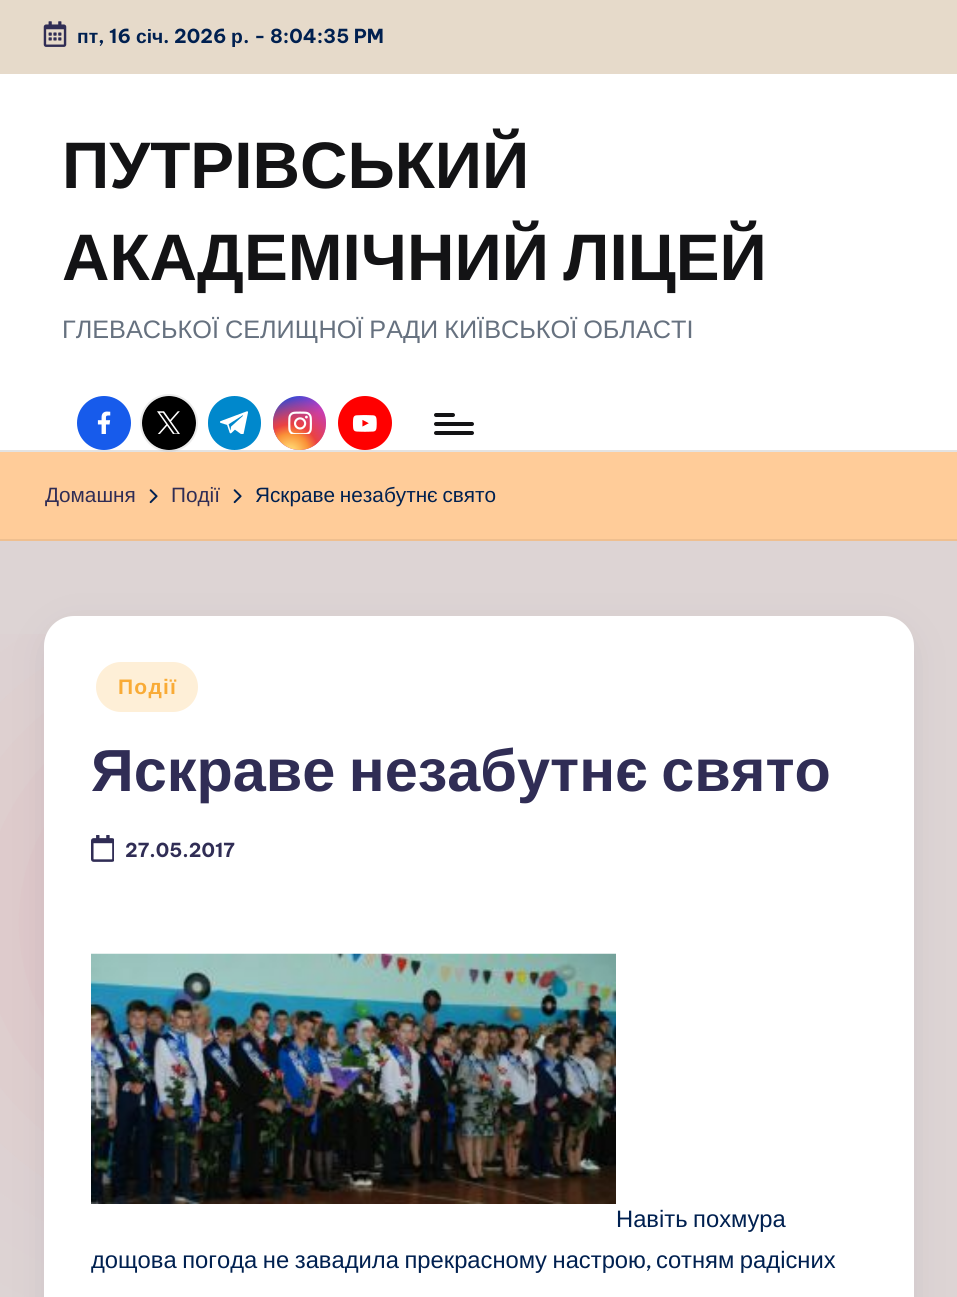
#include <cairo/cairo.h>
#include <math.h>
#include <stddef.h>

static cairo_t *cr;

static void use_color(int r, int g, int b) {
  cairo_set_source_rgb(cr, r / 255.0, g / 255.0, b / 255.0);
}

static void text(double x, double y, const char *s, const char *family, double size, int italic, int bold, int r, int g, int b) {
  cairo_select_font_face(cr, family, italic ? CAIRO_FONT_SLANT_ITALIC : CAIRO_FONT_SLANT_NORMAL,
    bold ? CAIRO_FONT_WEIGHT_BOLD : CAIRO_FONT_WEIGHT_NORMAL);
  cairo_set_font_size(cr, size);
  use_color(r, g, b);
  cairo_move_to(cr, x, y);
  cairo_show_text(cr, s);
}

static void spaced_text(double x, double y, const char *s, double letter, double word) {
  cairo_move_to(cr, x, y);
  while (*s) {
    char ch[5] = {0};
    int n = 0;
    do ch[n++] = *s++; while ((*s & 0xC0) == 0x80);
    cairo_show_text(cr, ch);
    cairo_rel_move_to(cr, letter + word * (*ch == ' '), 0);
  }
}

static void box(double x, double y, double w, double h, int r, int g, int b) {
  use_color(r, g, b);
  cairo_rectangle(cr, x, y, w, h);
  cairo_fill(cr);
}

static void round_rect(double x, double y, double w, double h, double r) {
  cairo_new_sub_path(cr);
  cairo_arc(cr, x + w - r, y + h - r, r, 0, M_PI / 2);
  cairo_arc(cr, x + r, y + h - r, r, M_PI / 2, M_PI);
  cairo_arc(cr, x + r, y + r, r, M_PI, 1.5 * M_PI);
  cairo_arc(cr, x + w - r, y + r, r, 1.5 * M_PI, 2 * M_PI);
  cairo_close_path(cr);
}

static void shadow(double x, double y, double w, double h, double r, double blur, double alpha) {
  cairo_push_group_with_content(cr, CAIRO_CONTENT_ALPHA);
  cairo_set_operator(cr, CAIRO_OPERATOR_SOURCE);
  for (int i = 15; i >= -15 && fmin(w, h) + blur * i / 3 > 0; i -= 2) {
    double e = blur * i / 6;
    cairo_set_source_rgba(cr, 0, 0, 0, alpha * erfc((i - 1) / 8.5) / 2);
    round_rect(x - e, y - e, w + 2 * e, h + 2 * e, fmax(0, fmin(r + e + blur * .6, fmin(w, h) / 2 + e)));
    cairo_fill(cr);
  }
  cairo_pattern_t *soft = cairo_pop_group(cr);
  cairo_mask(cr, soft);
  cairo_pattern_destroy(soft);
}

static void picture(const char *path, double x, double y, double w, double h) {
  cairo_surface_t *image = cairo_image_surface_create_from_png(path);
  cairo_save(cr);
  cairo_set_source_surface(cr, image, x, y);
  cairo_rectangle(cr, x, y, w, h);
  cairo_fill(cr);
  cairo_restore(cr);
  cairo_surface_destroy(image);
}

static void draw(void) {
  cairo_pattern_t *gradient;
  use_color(221, 212, 212);
  cairo_paint(cr);
  box(0, 0, 957, 74, 230, 218, 202);
  picture("img_01.png", 43, 21, 24, 26);
  cairo_save(cr);
  cairo_rectangle(cr, 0, 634, 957, 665);
  cairo_clip(cr);
  use_color(223, 194, 196);
  shadow(0, 709, 427, 427, 213.5, 112, 1);
  cairo_restore(cr);
  box(0, 74, 957, 376, 255, 255, 255);
  box(0, 450, 957, 2, 227, 227, 227);
  use_color(23, 91, 235);
  cairo_arc(cr, 104, 423, 27, 0, 2 * M_PI);
  cairo_fill(cr);
  picture("img_02.png", 97, 411, 14, 23);
  use_color(0, 0, 0);
  cairo_arc(cr, 169, 423, 27, 0, 2 * M_PI);
  cairo_fill(cr);
  cairo_arc(cr, 169, 423, 28, 0, 2 * M_PI);
  cairo_set_source_rgba(cr, 0.745, 0.745, 0.745, 0.3);
  cairo_stroke(cr);
  picture("img_03.png", 157, 411, 23, 23);
  use_color(0, 136, 204);
  round_rect(208, 396, 53, 54, 26.5);
  cairo_fill(cr);
  picture("img_04.png", 220, 411, 28, 23);
  gradient = cairo_pattern_create_linear(273, 396, 326, 449);
  cairo_pattern_add_color_stop_rgba(gradient, 0.12, 0.137, 0.294, 0.843, 1);
  cairo_pattern_add_color_stop_rgba(gradient, 0.58, 0.765, 0.235, 0.745, 1);
  cairo_set_source(cr, gradient);
  cairo_pattern_destroy(gradient);
  round_rect(273, 396, 53, 54, 26.5);
  cairo_fill(cr);
  gradient = cairo_pattern_create_radial(290, 453, 0, 290, 453, 68);
  cairo_pattern_add_color_stop_rgba(gradient, 0, 1, 0.882, 0.49, 1);
  cairo_pattern_add_color_stop_rgba(gradient, 0.1, 1, 0.804, 0.412, 1);
  cairo_pattern_add_color_stop_rgba(gradient, 0.28, 0.98, 0.569, 0.216, 1);
  cairo_pattern_add_color_stop_rgba(gradient, 0.42, 0.922, 0.255, 0.255, 1);
  cairo_pattern_add_color_stop_rgba(gradient, 0.82, 0.922, 0.255, 0.255, 0);
  cairo_set_source(cr, gradient);
  cairo_pattern_destroy(gradient);
  round_rect(273, 396, 53, 54, 26.5);
  cairo_fill(cr);
  picture("img_05.png", 288, 411, 24, 23);
  use_color(255, 0, 0);
  cairo_arc(cr, 365, 423, 27, 0, 2 * M_PI);
  cairo_fill(cr);
  picture("img_06.png", 352, 415, 25, 17);
  use_color(19, 19, 21);
  round_rect(434, 422, 40, 4, 2);
  cairo_fill(cr);
  round_rect(434, 413, 21, 4, 2);
  cairo_fill(cr);
  round_rect(434, 431, 40, 4, 2);
  cairo_fill(cr);
  box(0, 452, 957, 87, 255, 204, 153);
  box(0, 539, 957, 2, 239, 191, 143);
  picture("img_07.png", 149, 489, 9, 15);
  picture("img_07.png", 233, 489, 9, 15);
  use_color(69, 67, 96);
  shadow(44, 625, 870, 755, 30, 17.5, 0.1);
  use_color(255, 255, 255);
  round_rect(44, 616, 870, 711, 30);
  cairo_fill(cr);
  use_color(254, 239, 215);
  round_rect(96, 662, 102, 50, 25);
  cairo_fill(cr);
  picture("img_08.png", 91, 835, 23, 27);
  picture("img_09.png", 91, 953, 525, 251);
  text(77, 43, "пт", "Liberation Sans", 19.25, 0, 1, 0, 32, 80);
  text(98, 43, ", 16", "Be Vietnam Pro", 19.25, 0, 1, 0, 32, 80);
  text(136, 43, "січ", "Liberation Sans", 19.25, 0, 1, 0, 32, 80);
  text(163, 43, ". 2026", "Be Vietnam Pro", 19.25, 0, 1, 0, 32, 80);
  text(231, 43, "р", "Liberation Sans", 19.25, 0, 1, 0, 32, 80);
  text(243, 43, ". - 8:04:35 PM", "Be Vietnam Pro", 19.25, 0, 1, 0, 32, 80);
  text(62, 188, "ПУТРІВСЬКИЙ", "Liberation Sans", 65.75, 0, 1, 19, 19, 21);
  spaced_text(62, 280, "АКАДЕМІЧНИЙ ЛІЦЕЙ", 0, -4);
  cairo_select_font_face(cr, "Liberation Sans", CAIRO_FONT_SLANT_NORMAL, CAIRO_FONT_WEIGHT_NORMAL);
  cairo_set_font_size(cr, 25.25);
  use_color(102, 113, 127);
  spaced_text(62, 338, "ГЛЕВАСЬКОЇ СЕЛИЩНОЇ РАДИ КИЇВСЬКОЇ ОБЛАСТІ", 0, -1);
  text(45, 502, "Домашня", "Liberation Sans", 20.75, 0, 0, 48, 45, 85);
  text(171, 502, "Події", "Liberation Sans", 20.75, 0, 0, 48, 45, 85);
  use_color(0, 32, 80);
  spaced_text(255, 502, "Яскраве незабутнє свято", 0, -1);
  cairo_select_font_face(cr, "Liberation Sans", CAIRO_FONT_SLANT_NORMAL, CAIRO_FONT_WEIGHT_BOLD);
  cairo_set_font_size(cr, 21);
  use_color(249, 171, 54);
  spaced_text(118, 694, "Події", 1.25, 0);
  cairo_set_font_size(cr, 59.4);
  use_color(48, 45, 85);
  spaced_text(91, 791, "Яскраве незабутнє свято", 0, -3);
  text(125, 857, "27.05.2017", "Be Vietnam Pro", 19.25, 0, 1, 48, 45, 85);
  cairo_select_font_face(cr, "Liberation Sans", CAIRO_FONT_SLANT_NORMAL, CAIRO_FONT_WEIGHT_NORMAL);
  cairo_set_font_size(cr, 23.75);
  use_color(0, 32, 80);
  spaced_text(616, 1227, "Навіть похмура", 0, -1);
  spaced_text(91, 1268, "дощова погода не завадила прекрасному настрою", 0, -1);
  text(645, 1268, ",", "Be Vietnam Pro", 23.75, 0, 0, 0, 32, 80);
  cairo_select_font_face(cr, "Liberation Sans", CAIRO_FONT_SLANT_NORMAL, CAIRO_FONT_WEIGHT_NORMAL);
  spaced_text(656, 1268, "сотням радісних", 0, -1);
}

int main(void) {
  cairo_surface_t *surface = cairo_image_surface_create(CAIRO_FORMAT_RGB24, 957, 1297);
  cr = cairo_create(surface);
  cairo_font_options_t *options = cairo_font_options_create();
  cairo_font_options_set_hint_metrics(options, CAIRO_HINT_METRICS_OFF);
  cairo_font_options_set_hint_style(options, CAIRO_HINT_STYLE_NONE);
  cairo_set_font_options(cr, options);
  cairo_set_miter_limit(cr, 4);
  draw();
  cairo_surface_write_to_png(surface, "out.png");
  cairo_font_options_destroy(options);
  cairo_destroy(cr);
  cairo_surface_destroy(surface);
  return 0;
}
